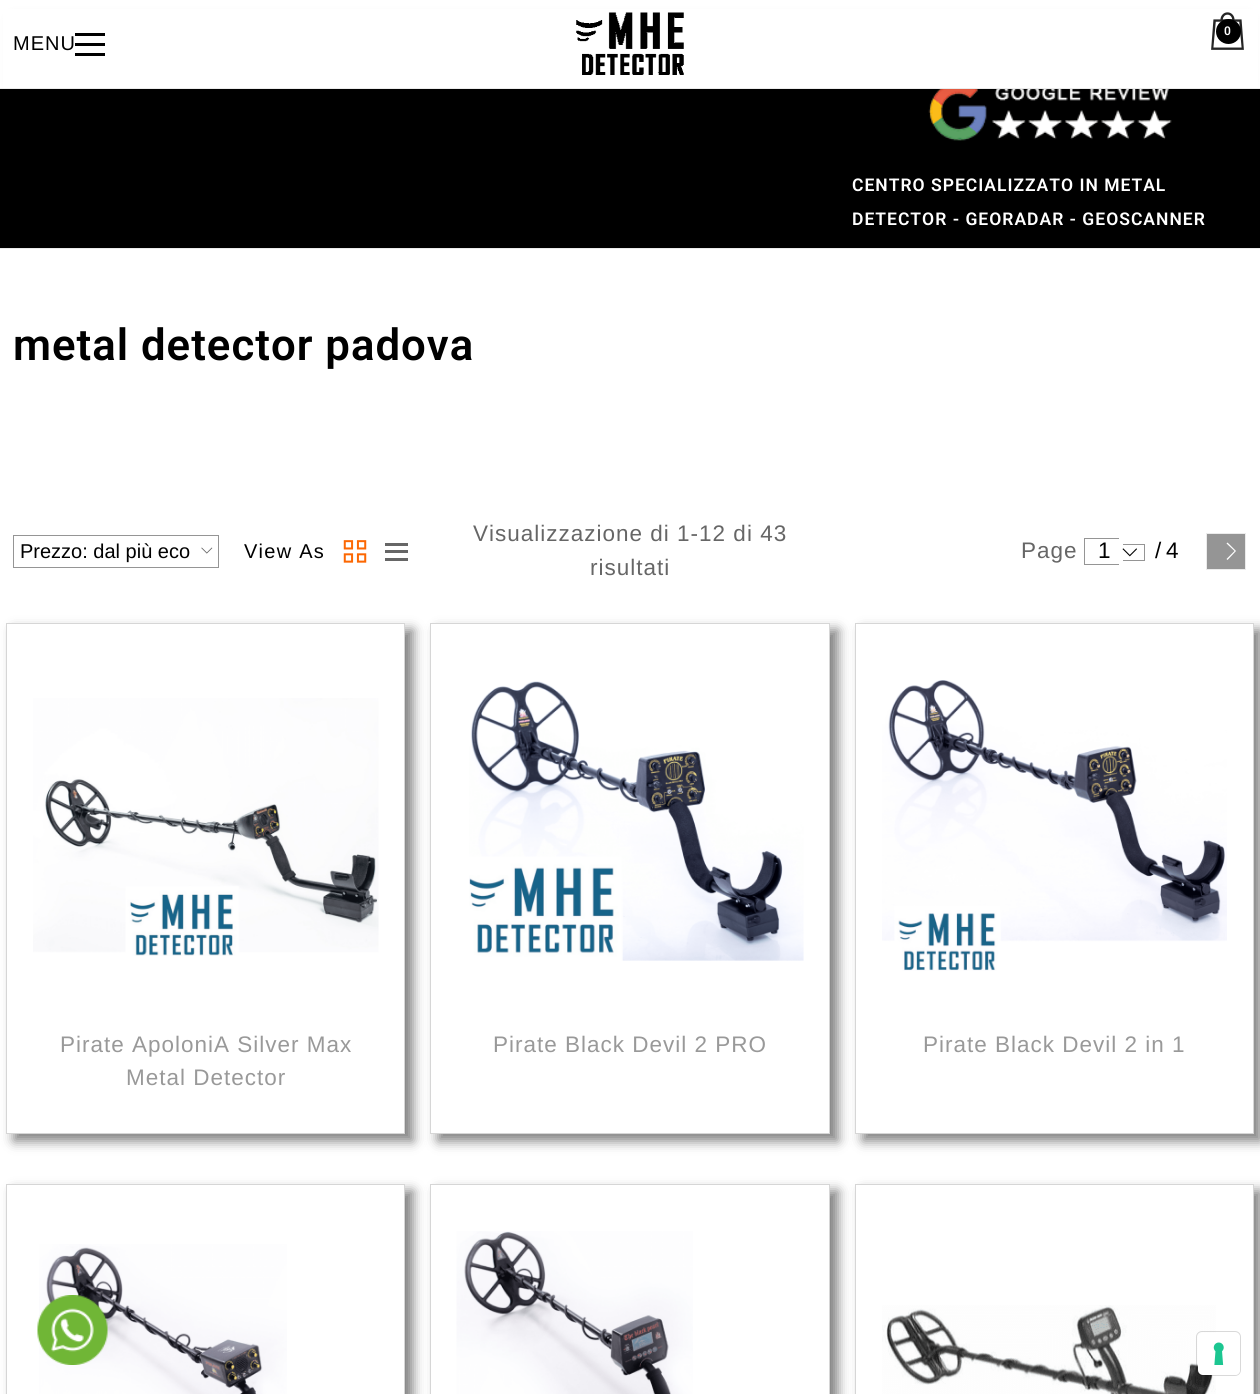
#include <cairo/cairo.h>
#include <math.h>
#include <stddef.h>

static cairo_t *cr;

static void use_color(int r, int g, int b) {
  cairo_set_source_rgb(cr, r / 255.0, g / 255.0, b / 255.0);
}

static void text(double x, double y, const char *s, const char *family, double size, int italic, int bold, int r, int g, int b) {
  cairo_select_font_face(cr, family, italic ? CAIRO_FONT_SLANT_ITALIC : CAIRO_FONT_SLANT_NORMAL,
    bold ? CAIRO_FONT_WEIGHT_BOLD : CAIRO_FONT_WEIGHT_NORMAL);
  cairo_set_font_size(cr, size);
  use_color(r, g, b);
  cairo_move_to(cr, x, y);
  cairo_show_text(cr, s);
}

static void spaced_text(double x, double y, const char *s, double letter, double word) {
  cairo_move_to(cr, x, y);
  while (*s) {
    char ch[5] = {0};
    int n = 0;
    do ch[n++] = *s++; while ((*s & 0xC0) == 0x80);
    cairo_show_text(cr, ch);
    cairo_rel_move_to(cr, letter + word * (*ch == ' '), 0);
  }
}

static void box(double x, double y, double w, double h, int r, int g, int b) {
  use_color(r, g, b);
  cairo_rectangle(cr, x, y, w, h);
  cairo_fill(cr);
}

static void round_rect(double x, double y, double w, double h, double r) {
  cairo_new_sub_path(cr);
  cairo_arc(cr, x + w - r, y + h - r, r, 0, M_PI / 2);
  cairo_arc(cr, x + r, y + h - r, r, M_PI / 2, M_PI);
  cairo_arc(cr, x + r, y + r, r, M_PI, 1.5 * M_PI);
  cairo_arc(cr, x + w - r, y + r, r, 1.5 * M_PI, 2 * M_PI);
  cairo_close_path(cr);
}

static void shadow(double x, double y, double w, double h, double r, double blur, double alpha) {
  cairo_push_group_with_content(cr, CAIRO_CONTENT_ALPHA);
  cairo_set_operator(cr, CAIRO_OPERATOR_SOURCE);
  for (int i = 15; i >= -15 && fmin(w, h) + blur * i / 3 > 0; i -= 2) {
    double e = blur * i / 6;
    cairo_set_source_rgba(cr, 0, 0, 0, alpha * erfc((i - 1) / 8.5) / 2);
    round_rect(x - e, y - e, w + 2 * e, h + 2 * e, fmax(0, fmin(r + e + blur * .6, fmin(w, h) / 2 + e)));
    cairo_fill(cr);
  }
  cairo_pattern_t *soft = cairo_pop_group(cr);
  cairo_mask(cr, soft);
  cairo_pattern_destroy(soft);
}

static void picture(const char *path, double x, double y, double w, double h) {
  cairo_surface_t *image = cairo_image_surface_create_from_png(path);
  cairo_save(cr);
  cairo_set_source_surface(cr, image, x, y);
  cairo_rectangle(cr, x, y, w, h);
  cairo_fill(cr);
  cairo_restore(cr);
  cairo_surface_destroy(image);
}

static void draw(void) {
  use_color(255, 255, 255);
  cairo_paint(cr);
  box(0, 89, 1260, 159, 0, 0, 0);
  picture("img_03.png", 928, 89, 244, 52);
  use_color(0, 0, 0);
  shadow(13, 19, 1235, 64, 0, 6, 0.2);
  box(3, 9, 1255, 79, 255, 255, 255);
  box(0, 88, 1260, 1, 235, 235, 235);
  picture("img_01.png", 576, 12, 108, 63);
  picture("img_02.png", 1211, 12, 33, 38);
  use_color(0, 0, 0);
  cairo_arc(cr, 1228.5, 31.5, 12.5, 0, 2 * M_PI);
  cairo_fill(cr);
  box(75, 43, 30, 3, 0, 0, 0);
  box(75, 33, 30, 3, 0, 0, 0);
  box(75, 53, 30, 3, 0, 0, 0);
  box(0, 248, 1260, 1, 235, 235, 235);
  picture("img_04.png", 201, 547, 12, 7);
  cairo_rectangle(cr, 13.5, 535.5, 205, 32);
  use_color(149, 149, 149);
  cairo_set_line_width(cr, 1);
  cairo_stroke(cr);
  picture("img_05.png", 343, 540, 24, 23);
  box(385, 550, 23, 3, 102, 102, 102);
  box(385, 543, 23, 3, 102, 102, 102);
  box(385, 558, 23, 3, 102, 102, 102);
  box(1084, 538, 35, 1, 149, 149, 149);
  box(1084, 564, 35, 1, 149, 149, 149);
  box(1084, 538, 1, 27, 149, 149, 149);
  box(1123, 544, 22, 1, 149, 149, 149);
  box(1144, 544, 1, 17, 149, 149, 149);
  box(1123, 560, 22, 1, 149, 149, 149);
  picture("img_06.png", 1122, 548, 15, 9);
  cairo_rectangle(cr, 1206.5, 533.5, 39, 36);
  cairo_fill_preserve(cr);
  use_color(235, 235, 235);
  cairo_stroke(cr);
  use_color(255, 255, 255);
  cairo_new_path(cr);
  cairo_move_to(cr, 1227.5, 542.5);
  cairo_line_to(cr, 1236, 551);
  cairo_line_to(cr, 1227.5, 560);
  cairo_line_to(cr, 1226.5, 559);
  cairo_line_to(cr, 1234.5, 551);
  cairo_line_to(cr, 1226.5, 543.5);
  cairo_close_path(cr);
  cairo_fill(cr);
  cairo_save(cr);
  cairo_set_fill_rule(cr, CAIRO_FILL_RULE_EVEN_ODD);
  cairo_new_path(cr);
  cairo_move_to(cr, 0, 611);
  cairo_line_to(cr, 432, 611);
  cairo_line_to(cr, 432, 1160);
  cairo_line_to(cr, 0, 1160);
  cairo_close_path(cr);
  cairo_move_to(cr, 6, 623);
  cairo_line_to(cr, 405, 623);
  cairo_line_to(cr, 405, 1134);
  cairo_line_to(cr, 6, 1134);
  cairo_close_path(cr);
  cairo_clip(cr);
  use_color(0, 0, 0);
  shadow(14, 630, 399, 511, 0, 6, 0.5);
  cairo_restore(cr);
  cairo_rectangle(cr, 6.5, 623.5, 398, 510);
  use_color(214, 214, 214);
  cairo_stroke(cr);
  picture("img_07.png", 33, 698, 346, 258);
  cairo_save(cr);
  cairo_set_fill_rule(cr, CAIRO_FILL_RULE_EVEN_ODD);
  cairo_new_path(cr);
  cairo_move_to(cr, 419, 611);
  cairo_line_to(cr, 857, 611);
  cairo_line_to(cr, 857, 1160);
  cairo_line_to(cr, 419, 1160);
  cairo_close_path(cr);
  cairo_move_to(cr, 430, 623);
  cairo_line_to(cr, 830, 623);
  cairo_line_to(cr, 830, 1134);
  cairo_line_to(cr, 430, 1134);
  cairo_close_path(cr);
  cairo_clip(cr);
  use_color(0, 0, 0);
  shadow(438, 630, 400, 511, 0, 6, 0.5);
  cairo_restore(cr);
  cairo_rectangle(cr, 430.5, 623.5, 399, 510);
  cairo_stroke(cr);
  picture("img_08.png", 469, 681, 335, 280);
  cairo_save(cr);
  cairo_set_fill_rule(cr, CAIRO_FILL_RULE_EVEN_ODD);
  cairo_new_path(cr);
  cairo_move_to(cr, 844, 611);
  cairo_line_to(cr, 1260, 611);
  cairo_line_to(cr, 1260, 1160);
  cairo_line_to(cr, 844, 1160);
  cairo_close_path(cr);
  cairo_move_to(cr, 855, 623);
  cairo_line_to(cr, 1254, 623);
  cairo_line_to(cr, 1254, 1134);
  cairo_line_to(cr, 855, 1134);
  cairo_close_path(cr);
  cairo_clip(cr);
  use_color(0, 0, 0);
  shadow(863, 630, 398, 511, 0, 6, 0.5);
  cairo_restore(cr);
  cairo_rectangle(cr, 855.5, 623.5, 398, 510);
  cairo_stroke(cr);
  picture("img_09.png", 882, 680, 345, 291);
  cairo_save(cr);
  cairo_set_fill_rule(cr, CAIRO_FILL_RULE_EVEN_ODD);
  cairo_new_path(cr);
  cairo_move_to(cr, 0, 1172);
  cairo_line_to(cr, 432, 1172);
  cairo_line_to(cr, 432, 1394);
  cairo_line_to(cr, 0, 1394);
  cairo_close_path(cr);
  cairo_move_to(cr, 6, 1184);
  cairo_line_to(cr, 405, 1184);
  cairo_line_to(cr, 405, 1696);
  cairo_line_to(cr, 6, 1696);
  cairo_close_path(cr);
  cairo_clip(cr);
  use_color(0, 0, 0);
  shadow(14, 1191, 399, 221, 0, 6, 0.5);
  cairo_restore(cr);
  cairo_rectangle(cr, 6.5, 1184.5, 398, 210);
  cairo_stroke(cr);
  picture("img_10.png", 39, 1244, 248, 150);
  cairo_save(cr);
  cairo_set_fill_rule(cr, CAIRO_FILL_RULE_EVEN_ODD);
  cairo_new_path(cr);
  cairo_move_to(cr, 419, 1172);
  cairo_line_to(cr, 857, 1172);
  cairo_line_to(cr, 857, 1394);
  cairo_line_to(cr, 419, 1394);
  cairo_close_path(cr);
  cairo_move_to(cr, 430, 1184);
  cairo_line_to(cr, 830, 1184);
  cairo_line_to(cr, 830, 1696);
  cairo_line_to(cr, 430, 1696);
  cairo_close_path(cr);
  cairo_clip(cr);
  use_color(0, 0, 0);
  shadow(438, 1191, 400, 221, 0, 6, 0.5);
  cairo_restore(cr);
  cairo_rectangle(cr, 430.5, 1184.5, 399, 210);
  cairo_stroke(cr);
  picture("img_11.png", 456, 1231, 237, 163);
  cairo_save(cr);
  cairo_set_fill_rule(cr, CAIRO_FILL_RULE_EVEN_ODD);
  cairo_new_path(cr);
  cairo_move_to(cr, 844, 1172);
  cairo_line_to(cr, 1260, 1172);
  cairo_line_to(cr, 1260, 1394);
  cairo_line_to(cr, 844, 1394);
  cairo_close_path(cr);
  cairo_move_to(cr, 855, 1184);
  cairo_line_to(cr, 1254, 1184);
  cairo_line_to(cr, 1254, 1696);
  cairo_line_to(cr, 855, 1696);
  cairo_close_path(cr);
  cairo_clip(cr);
  use_color(0, 0, 0);
  shadow(863, 1191, 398, 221, 0, 6, 0.5);
  cairo_restore(cr);
  cairo_rectangle(cr, 855.5, 1184.5, 398, 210);
  cairo_stroke(cr);
  picture("img_12.png", 882, 1305, 334, 89);
  picture("img_13.png", 37, 1295, 71, 70);
  round_rect(1196.5, 1331.5, 44, 44, 5.5);
  cairo_set_source_rgba(cr, 0, 0, 0, 0.15);
  cairo_stroke(cr);
  use_color(255, 255, 255);
  round_rect(1198, 1333, 42, 42, 5);
  cairo_fill(cr);
  picture("img_14.png", 1213, 1342, 11, 23);
  cairo_select_font_face(cr, "Roboto SemiBold", CAIRO_FONT_SLANT_NORMAL, CAIRO_FONT_WEIGHT_NORMAL);
  cairo_set_font_size(cr, 12);
  spaced_text(1224, 35, "0", 1, 0);
  cairo_select_font_face(cr, "Liberation Sans", CAIRO_FONT_SLANT_NORMAL, CAIRO_FONT_WEIGHT_NORMAL);
  cairo_set_font_size(cr, 20);
  use_color(0, 0, 0);
  spaced_text(13, 50, "MENU", 1, 0);
  cairo_select_font_face(cr, "Roboto SemiBold", CAIRO_FONT_SLANT_NORMAL, CAIRO_FONT_WEIGHT_NORMAL);
  cairo_set_font_size(cr, 17.5);
  use_color(255, 255, 255);
  spaced_text(852, 191, "CENTRO SPECIALIZZATO IN METAL", 1, 0);
  spaced_text(852, 225, "DETECTOR - GEORADAR - GEOSCANNER", 1, 0);
  cairo_set_font_size(cr, 43.75);
  use_color(0, 0, 0);
  spaced_text(13, 360, "metal detector padova", 1, 0);
  text(20, 558, "Prezzo: dal più eco", "Liberation Sans", 20, 0, 0, 0, 0, 0);
  spaced_text(244, 558, "View As", 1.25, 0);
  cairo_set_font_size(cr, 22.5);
  use_color(102, 102, 102);
  spaced_text(473, 541, "Visualizzazione di 1-12 di 43", 1, 0);
  spaced_text(590, 575, "risultati", 1, 0);
  spaced_text(1021, 558, "Page", 1, 0);
  use_color(0, 0, 0);
  spaced_text(1098, 558, "1", 1, 0);
  spaced_text(1155, 558, "/", 1, 0);
  spaced_text(1166, 558, "4", 1, 0);
  use_color(153, 153, 153);
  spaced_text(60, 1052, "Pirate ApoloniA Silver Max", 1, 0);
  spaced_text(126, 1085, "Metal Detector", 1, 0);
  spaced_text(493, 1052, "Pirate Black Devil 2 PRO", 1, 0);
  spaced_text(923, 1052, "Pirate Black Devil 2 in 1", 1, 0);
}

int main(void) {
  cairo_surface_t *surface = cairo_image_surface_create(CAIRO_FORMAT_RGB24, 1260, 1394);
  cr = cairo_create(surface);
  cairo_font_options_t *options = cairo_font_options_create();
  cairo_font_options_set_hint_metrics(options, CAIRO_HINT_METRICS_OFF);
  cairo_font_options_set_hint_style(options, CAIRO_HINT_STYLE_NONE);
  cairo_set_font_options(cr, options);
  cairo_set_miter_limit(cr, 4);
  draw();
  cairo_surface_write_to_png(surface, "out.png");
  cairo_font_options_destroy(options);
  cairo_destroy(cr);
  cairo_surface_destroy(surface);
  return 0;
}
